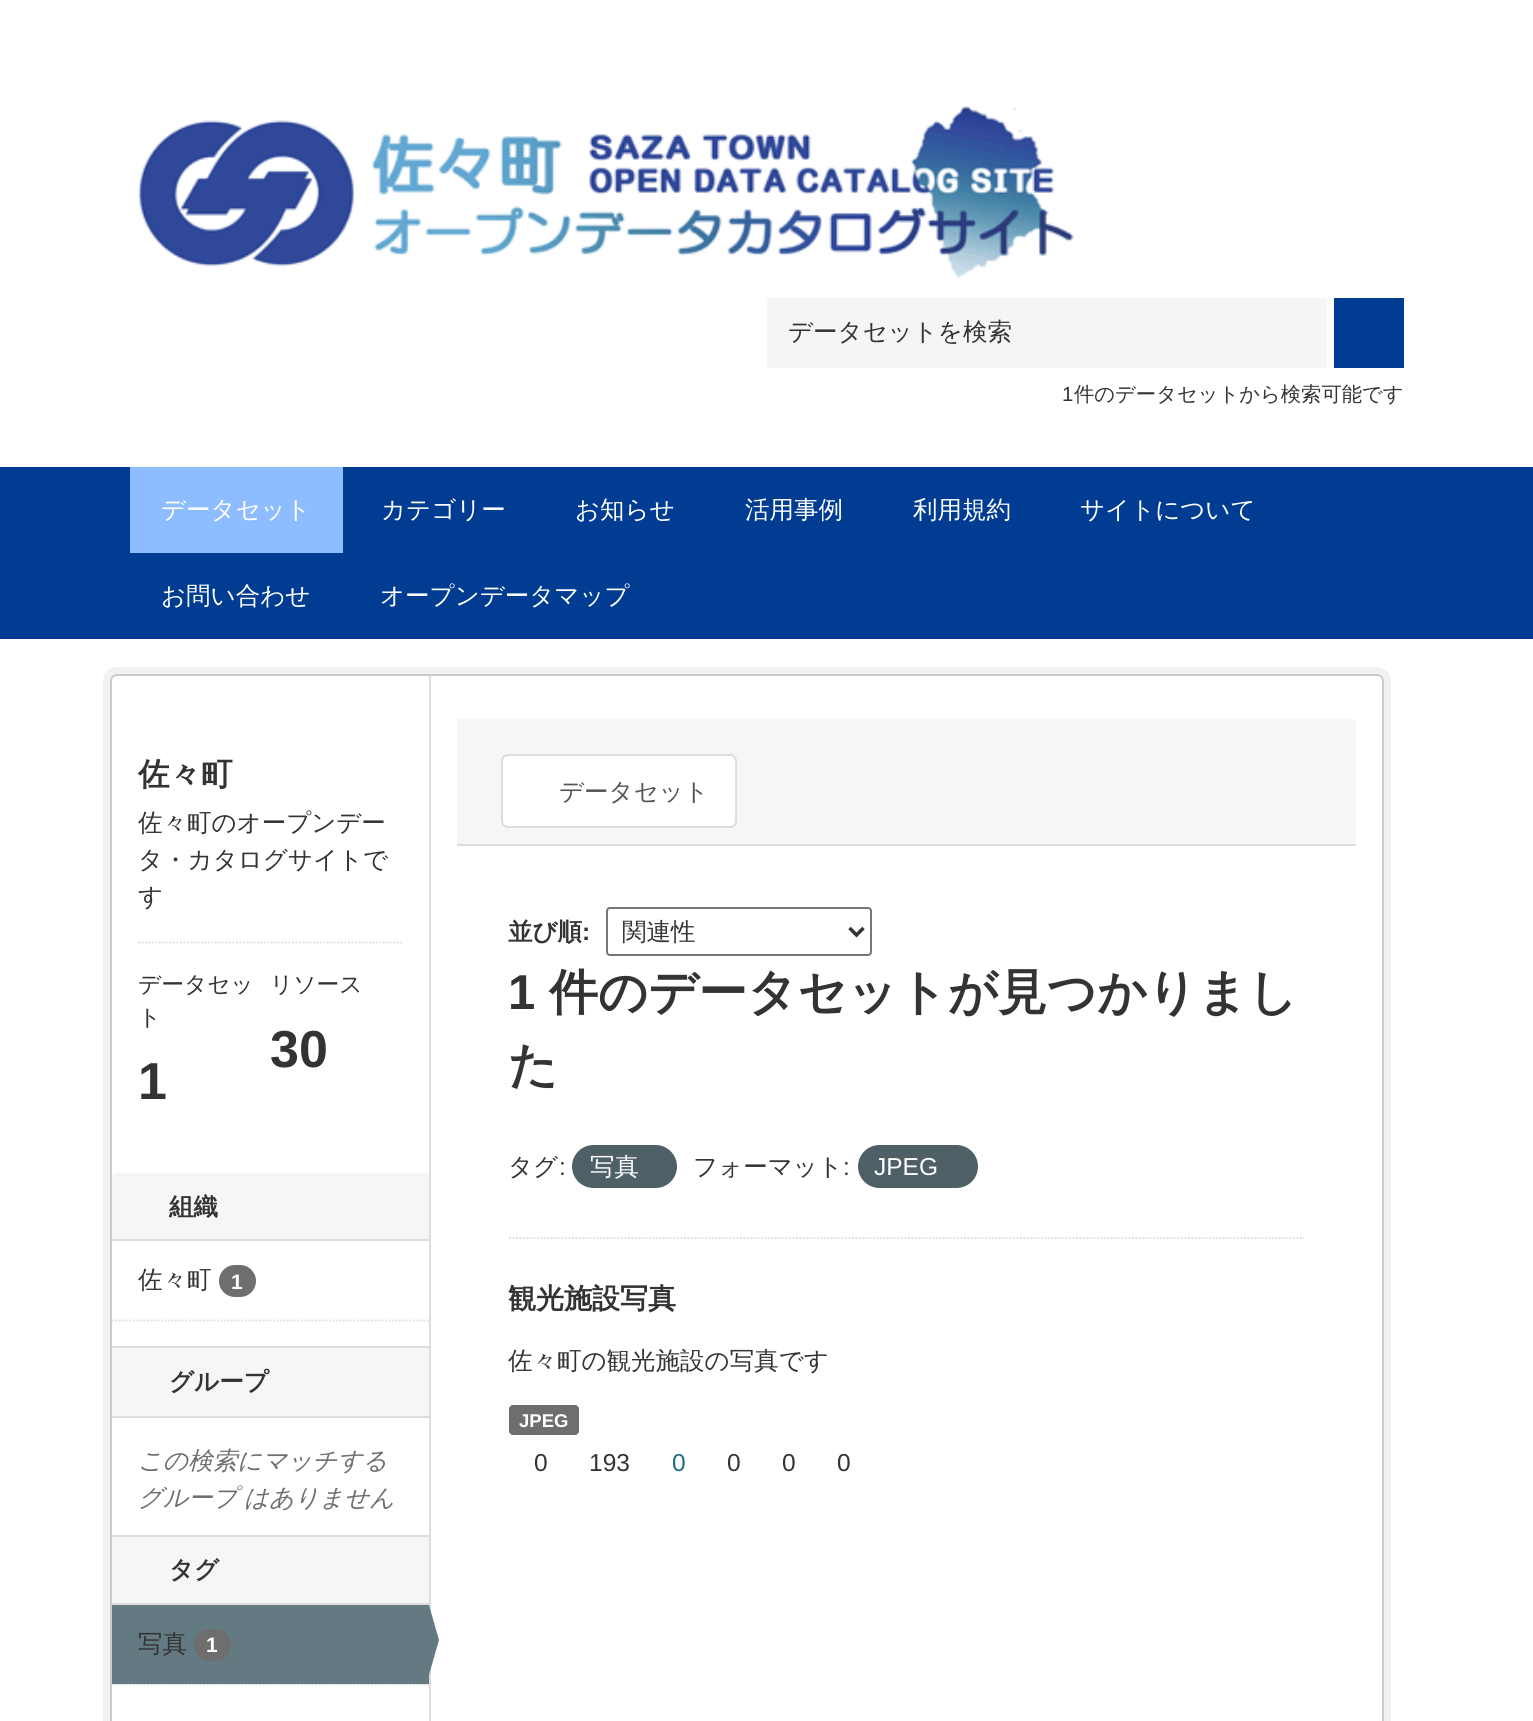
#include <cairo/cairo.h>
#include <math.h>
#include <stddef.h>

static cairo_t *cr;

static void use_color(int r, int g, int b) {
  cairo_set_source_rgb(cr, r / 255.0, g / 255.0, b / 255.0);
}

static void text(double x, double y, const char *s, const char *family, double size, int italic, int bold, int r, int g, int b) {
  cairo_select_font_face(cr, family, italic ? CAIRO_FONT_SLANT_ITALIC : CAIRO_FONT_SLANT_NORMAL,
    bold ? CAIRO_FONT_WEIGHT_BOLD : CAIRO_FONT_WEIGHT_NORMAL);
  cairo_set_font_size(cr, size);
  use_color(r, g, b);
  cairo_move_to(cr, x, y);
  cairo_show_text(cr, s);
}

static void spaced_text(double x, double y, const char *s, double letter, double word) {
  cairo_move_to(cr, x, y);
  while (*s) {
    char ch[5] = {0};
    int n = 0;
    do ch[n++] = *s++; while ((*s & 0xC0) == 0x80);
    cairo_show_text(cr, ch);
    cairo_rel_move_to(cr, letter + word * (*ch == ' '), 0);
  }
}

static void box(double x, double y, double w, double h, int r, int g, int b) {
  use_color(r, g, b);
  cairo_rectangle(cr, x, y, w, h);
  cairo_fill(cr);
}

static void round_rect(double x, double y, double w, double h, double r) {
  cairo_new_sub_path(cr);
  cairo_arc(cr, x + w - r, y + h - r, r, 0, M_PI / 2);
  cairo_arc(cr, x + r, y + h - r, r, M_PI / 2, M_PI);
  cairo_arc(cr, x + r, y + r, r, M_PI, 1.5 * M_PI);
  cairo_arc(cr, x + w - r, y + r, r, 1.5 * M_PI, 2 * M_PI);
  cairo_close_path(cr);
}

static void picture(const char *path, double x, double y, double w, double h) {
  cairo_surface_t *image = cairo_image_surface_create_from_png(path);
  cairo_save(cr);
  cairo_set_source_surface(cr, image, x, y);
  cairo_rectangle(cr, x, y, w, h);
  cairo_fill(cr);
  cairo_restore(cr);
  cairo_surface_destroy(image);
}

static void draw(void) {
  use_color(255, 255, 255);
  cairo_paint(cr);
  picture("img_01.png", 138, 106, 936, 173);
  use_color(245, 245, 245);
  round_rect(767, 298, 560, 70, 2);
  cairo_fill(cr);
  box(1334, 298, 70, 70, 0, 60, 145);
  box(0, 467, 1533, 172, 0, 60, 145);
  box(130, 467, 213, 86, 142, 189, 255);
  round_rect(106.5, 670.5, 1281, 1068, 10.5);
  use_color(242, 242, 242);
  cairo_set_line_width(cr, 7);
  cairo_stroke(cr);
  use_color(255, 255, 255);
  round_rect(111, 675, 1272, 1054, 6);
  cairo_fill_preserve(cr);
  use_color(204, 204, 204);
  cairo_set_line_width(cr, 2);
  cairo_stroke(cr);
  cairo_new_path(cr);
  cairo_move_to(cr, 138, 942.5);
  cairo_line_to(cr, 402.5, 942.5);
  use_color(221, 221, 221);
  cairo_set_line_width(cr, 1.8);
  cairo_set_dash(cr, (double[]){1.75, 1.75}, 2, 0);
  cairo_stroke(cr);
  use_color(246, 246, 246);
  cairo_new_path(cr);
  cairo_move_to(cr, 117, 1173);
  cairo_line_to(cr, 429, 1173);
  cairo_line_to(cr, 429, 1241);
  cairo_line_to(cr, 112, 1241);
  cairo_line_to(cr, 112, 1178);
  cairo_curve_to(cr, 112, 1175, 114, 1173, 117, 1173);
  cairo_close_path(cr);
  cairo_fill(cr);
  box(112, 1239, 317, 2, 221, 221, 221);
  use_color(110, 110, 110);
  round_rect(219, 1265, 37, 32, 16);
  cairo_fill(cr);
  cairo_new_path(cr);
  cairo_move_to(cr, 112, 1320.5);
  cairo_line_to(cr, 429, 1320.5);
  use_color(221, 221, 221);
  cairo_stroke(cr);
  box(112, 1348, 317, 68, 246, 246, 246);
  box(112, 1346, 317, 2, 221, 221, 221);
  box(112, 1416, 317, 2, 221, 221, 221);
  box(112, 1537, 317, 66, 246, 246, 246);
  box(112, 1535, 317, 2, 221, 221, 221);
  box(112, 1603, 317, 2, 221, 221, 221);
  box(113, 1684, 316, 1, 246, 246, 246);
  cairo_new_path(cr);
  cairo_move_to(cr, 112, 1684.5);
  cairo_line_to(cr, 429, 1684.5);
  use_color(221, 221, 221);
  cairo_stroke(cr);
  box(112, 1605, 317, 79, 100, 122, 130);
  use_color(110, 110, 110);
  round_rect(194, 1629, 37, 32, 16);
  cairo_fill(cr);
  box(429, 676, 2, 1045, 221, 221, 221);
  use_color(100, 122, 130);
  cairo_new_path(cr);
  cairo_move_to(cr, 429, 1675);
  cairo_line_to(cr, 429, 1605);
  cairo_line_to(cr, 439, 1640);
  cairo_close_path(cr);
  cairo_fill(cr);
  use_color(246, 246, 246);
  cairo_new_path(cr);
  cairo_move_to(cr, 457, 719);
  cairo_line_to(cr, 1351, 719);
  cairo_curve_to(cr, 1354, 719, 1356, 721, 1356, 724);
  cairo_line_to(cr, 1356, 845);
  cairo_line_to(cr, 457, 845);
  cairo_close_path(cr);
  cairo_fill(cr);
  box(457, 844, 899, 2, 221, 221, 221);
  use_color(255, 255, 255);
  round_rect(502, 755, 234, 72, 6);
  cairo_fill_preserve(cr);
  use_color(221, 221, 221);
  cairo_set_line_width(cr, 2);
  cairo_set_dash(cr, NULL, 0, 0);
  cairo_stroke(cr);
  cairo_new_path(cr);
  cairo_move_to(cr, 509, 1238);
  cairo_line_to(cr, 1304, 1238);
  cairo_set_line_width(cr, 1.8);
  cairo_set_dash(cr, (double[]){1.75, 1.75}, 2, 0);
  cairo_stroke(cr);
  round_rect(607, 908, 264, 47, 3);
  use_color(118, 118, 118);
  cairo_set_line_width(cr, 2);
  cairo_set_dash(cr, NULL, 0, 0);
  cairo_stroke(cr);
  cairo_new_path(cr);
  cairo_move_to(cr, 849.5, 928);
  cairo_line_to(cr, 856.5, 935);
  cairo_line_to(cr, 863.5, 928);
  use_color(51, 51, 51);
  cairo_set_line_width(cr, 3.5);
  cairo_stroke(cr);
  use_color(78, 95, 101);
  round_rect(572, 1145, 105, 43, 21.5);
  cairo_fill(cr);
  round_rect(858, 1145, 120, 43, 21.5);
  cairo_fill(cr);
  use_color(110, 110, 110);
  round_rect(509, 1405, 70, 30, 4);
  cairo_fill(cr);
  text(788, 340, "データセットを検索", "WenQuanYi Zen Hei Medium", 24.5, 0, 0, 51, 51, 51);
  text(1062, 401, "1", "Liberation Sans", 20.3, 0, 0, 51, 51, 51);
  text(1074, 401, "件のデータセットから検索可能です", "WenQuanYi Zen Hei Medium", 20.3, 0, 0, 51, 51, 51);
  text(161, 518, "データセット", "WenQuanYi Zen Hei Medium", 24.5, 0, 0, 255, 255, 255);
  text(381, 518, "カテゴリー", "WenQuanYi Zen Hei Medium", 24.5, 0, 0, 255, 255, 255);
  text(575, 518, "お知らせ", "WenQuanYi Zen Hei Medium", 24.5, 0, 0, 255, 255, 255);
  text(745, 518, "活用事例", "WenQuanYi Zen Hei Medium", 24.5, 0, 0, 255, 255, 255);
  text(913, 518, "利用規約", "WenQuanYi Zen Hei Medium", 24.5, 0, 0, 255, 255, 255);
  text(1080, 518, "サイトについて", "WenQuanYi Zen Hei Medium", 24.5, 0, 0, 255, 255, 255);
  text(161, 604, "お問い合わせ", "WenQuanYi Zen Hei Medium", 24.5, 0, 0, 255, 255, 255);
  text(380, 604, "オープンデータマップ", "WenQuanYi Zen Hei Medium", 24.5, 0, 0, 255, 255, 255);
  text(138, 785, "佐々町", "WenQuanYi Zen Hei", 31.5, 0, 1, 51, 51, 51);
  text(138, 831, "佐々町のオープンデー", "WenQuanYi Zen Hei Medium", 24.5, 0, 0, 51, 51, 51);
  text(138, 868, "タ・カタログサイトで", "WenQuanYi Zen Hei Medium", 24.5, 0, 0, 51, 51, 51);
  text(138, 905, "す", "WenQuanYi Zen Hei Medium", 24.5, 0, 0, 51, 51, 51);
  text(138, 992, "データセッ", "WenQuanYi Zen Hei Medium", 22.75, 0, 0, 51, 51, 51);
  text(138, 1025, "ト", "WenQuanYi Zen Hei Medium", 22.75, 0, 0, 51, 51, 51);
  text(138, 1099, "1", "Liberation Sans", 52, 0, 1, 51, 51, 51);
  text(270, 992, "リソース", "WenQuanYi Zen Hei Medium", 22.75, 0, 0, 51, 51, 51);
  text(270, 1067, "30", "Liberation Sans", 52, 0, 1, 51, 51, 51);
  text(169, 1215, "組織", "WenQuanYi Zen Hei", 24.5, 0, 1, 51, 51, 51);
  text(138, 1288, "佐々町", "WenQuanYi Zen Hei Medium", 24.5, 0, 0, 51, 51, 51);
  text(231, 1289, "1", "Liberation Sans", 21, 0, 1, 255, 255, 255);
  text(169, 1390, "グループ", "WenQuanYi Zen Hei", 24.5, 0, 1, 51, 51, 51);
  text(138, 1469, "この検索にマッチする", "WenQuanYi Zen Hei Medium", 24.5, 1, 0, 110, 110, 110);
  spaced_text(138, 1506, "グループ はありません", 0, -1);
  text(169, 1578, "タグ", "WenQuanYi Zen Hei", 24.5, 0, 1, 51, 51, 51);
  text(138, 1652, "写真", "WenQuanYi Zen Hei Medium", 24.5, 0, 0, 51, 51, 51);
  text(206, 1652, "1", "Liberation Sans", 21, 0, 1, 255, 255, 255);
  text(559, 800, "データセット", "WenQuanYi Zen Hei Medium", 24.5, 0, 0, 85, 85, 85);
  text(508, 940, "並び順", "WenQuanYi Zen Hei", 24.5, 0, 1, 51, 51, 51);
  text(582, 940, ":", "Liberation Sans", 24.5, 0, 1, 51, 51, 51);
  text(622, 940, "関連性", "WenQuanYi Zen Hei Medium", 24.5, 0, 0, 51, 51, 51);
  text(508, 1009, "1", "Liberation Sans", 49, 0, 1, 51, 51, 51);
  text(549, 1009, "件のデータセットが見つかりまし", "WenQuanYi Zen Hei", 49, 0, 1, 51, 51, 51);
  text(508, 1082, "た", "WenQuanYi Zen Hei", 49, 0, 1, 51, 51, 51);
  text(508, 1175, "タグ", "WenQuanYi Zen Hei Medium", 24.5, 0, 0, 51, 51, 51);
  text(559, 1175, ":", "Liberation Sans", 24.5, 0, 0, 51, 51, 51);
  text(590, 1175, "写真", "WenQuanYi Zen Hei Medium", 24.5, 0, 0, 255, 255, 255);
  text(693, 1175, "フォーマット", "WenQuanYi Zen Hei Medium", 24.5, 0, 0, 51, 51, 51);
  text(843, 1175, ":", "Liberation Sans", 24.5, 0, 0, 51, 51, 51);
  text(874, 1175, "JPEG", "Liberation Sans", 24.5, 0, 0, 255, 255, 255);
  text(508, 1308, "観光施設写真", "WenQuanYi Zen Hei", 28, 0, 1, 51, 51, 51);
  text(508, 1369, "佐々町の観光施設の写真です", "WenQuanYi Zen Hei Medium", 24.5, 0, 0, 51, 51, 51);
  text(519, 1427, "JPEG", "Liberation Sans", 18.5, 0, 1, 255, 255, 255);
  text(534, 1471, "0", "Liberation Sans", 24.5, 0, 0, 51, 51, 51);
  text(589, 1471, "193", "Liberation Sans", 24.5, 0, 0, 51, 51, 51);
  text(672, 1471, "0", "Liberation Sans", 24.5, 0, 0, 32, 107, 130);
  text(727, 1471, "0", "Liberation Sans", 24.5, 0, 0, 51, 51, 51);
  text(782, 1471, "0", "Liberation Sans", 24.5, 0, 0, 51, 51, 51);
  text(837, 1471, "0", "Liberation Sans", 24.5, 0, 0, 51, 51, 51);
}

int main(void) {
  cairo_surface_t *surface = cairo_image_surface_create(CAIRO_FORMAT_RGB24, 1533, 1721);
  cr = cairo_create(surface);
  cairo_font_options_t *options = cairo_font_options_create();
  cairo_font_options_set_hint_metrics(options, CAIRO_HINT_METRICS_OFF);
  cairo_font_options_set_hint_style(options, CAIRO_HINT_STYLE_NONE);
  cairo_set_font_options(cr, options);
  cairo_set_miter_limit(cr, 4);
  draw();
  cairo_surface_write_to_png(surface, "out.png");
  cairo_font_options_destroy(options);
  cairo_destroy(cr);
  cairo_surface_destroy(surface);
  return 0;
}
